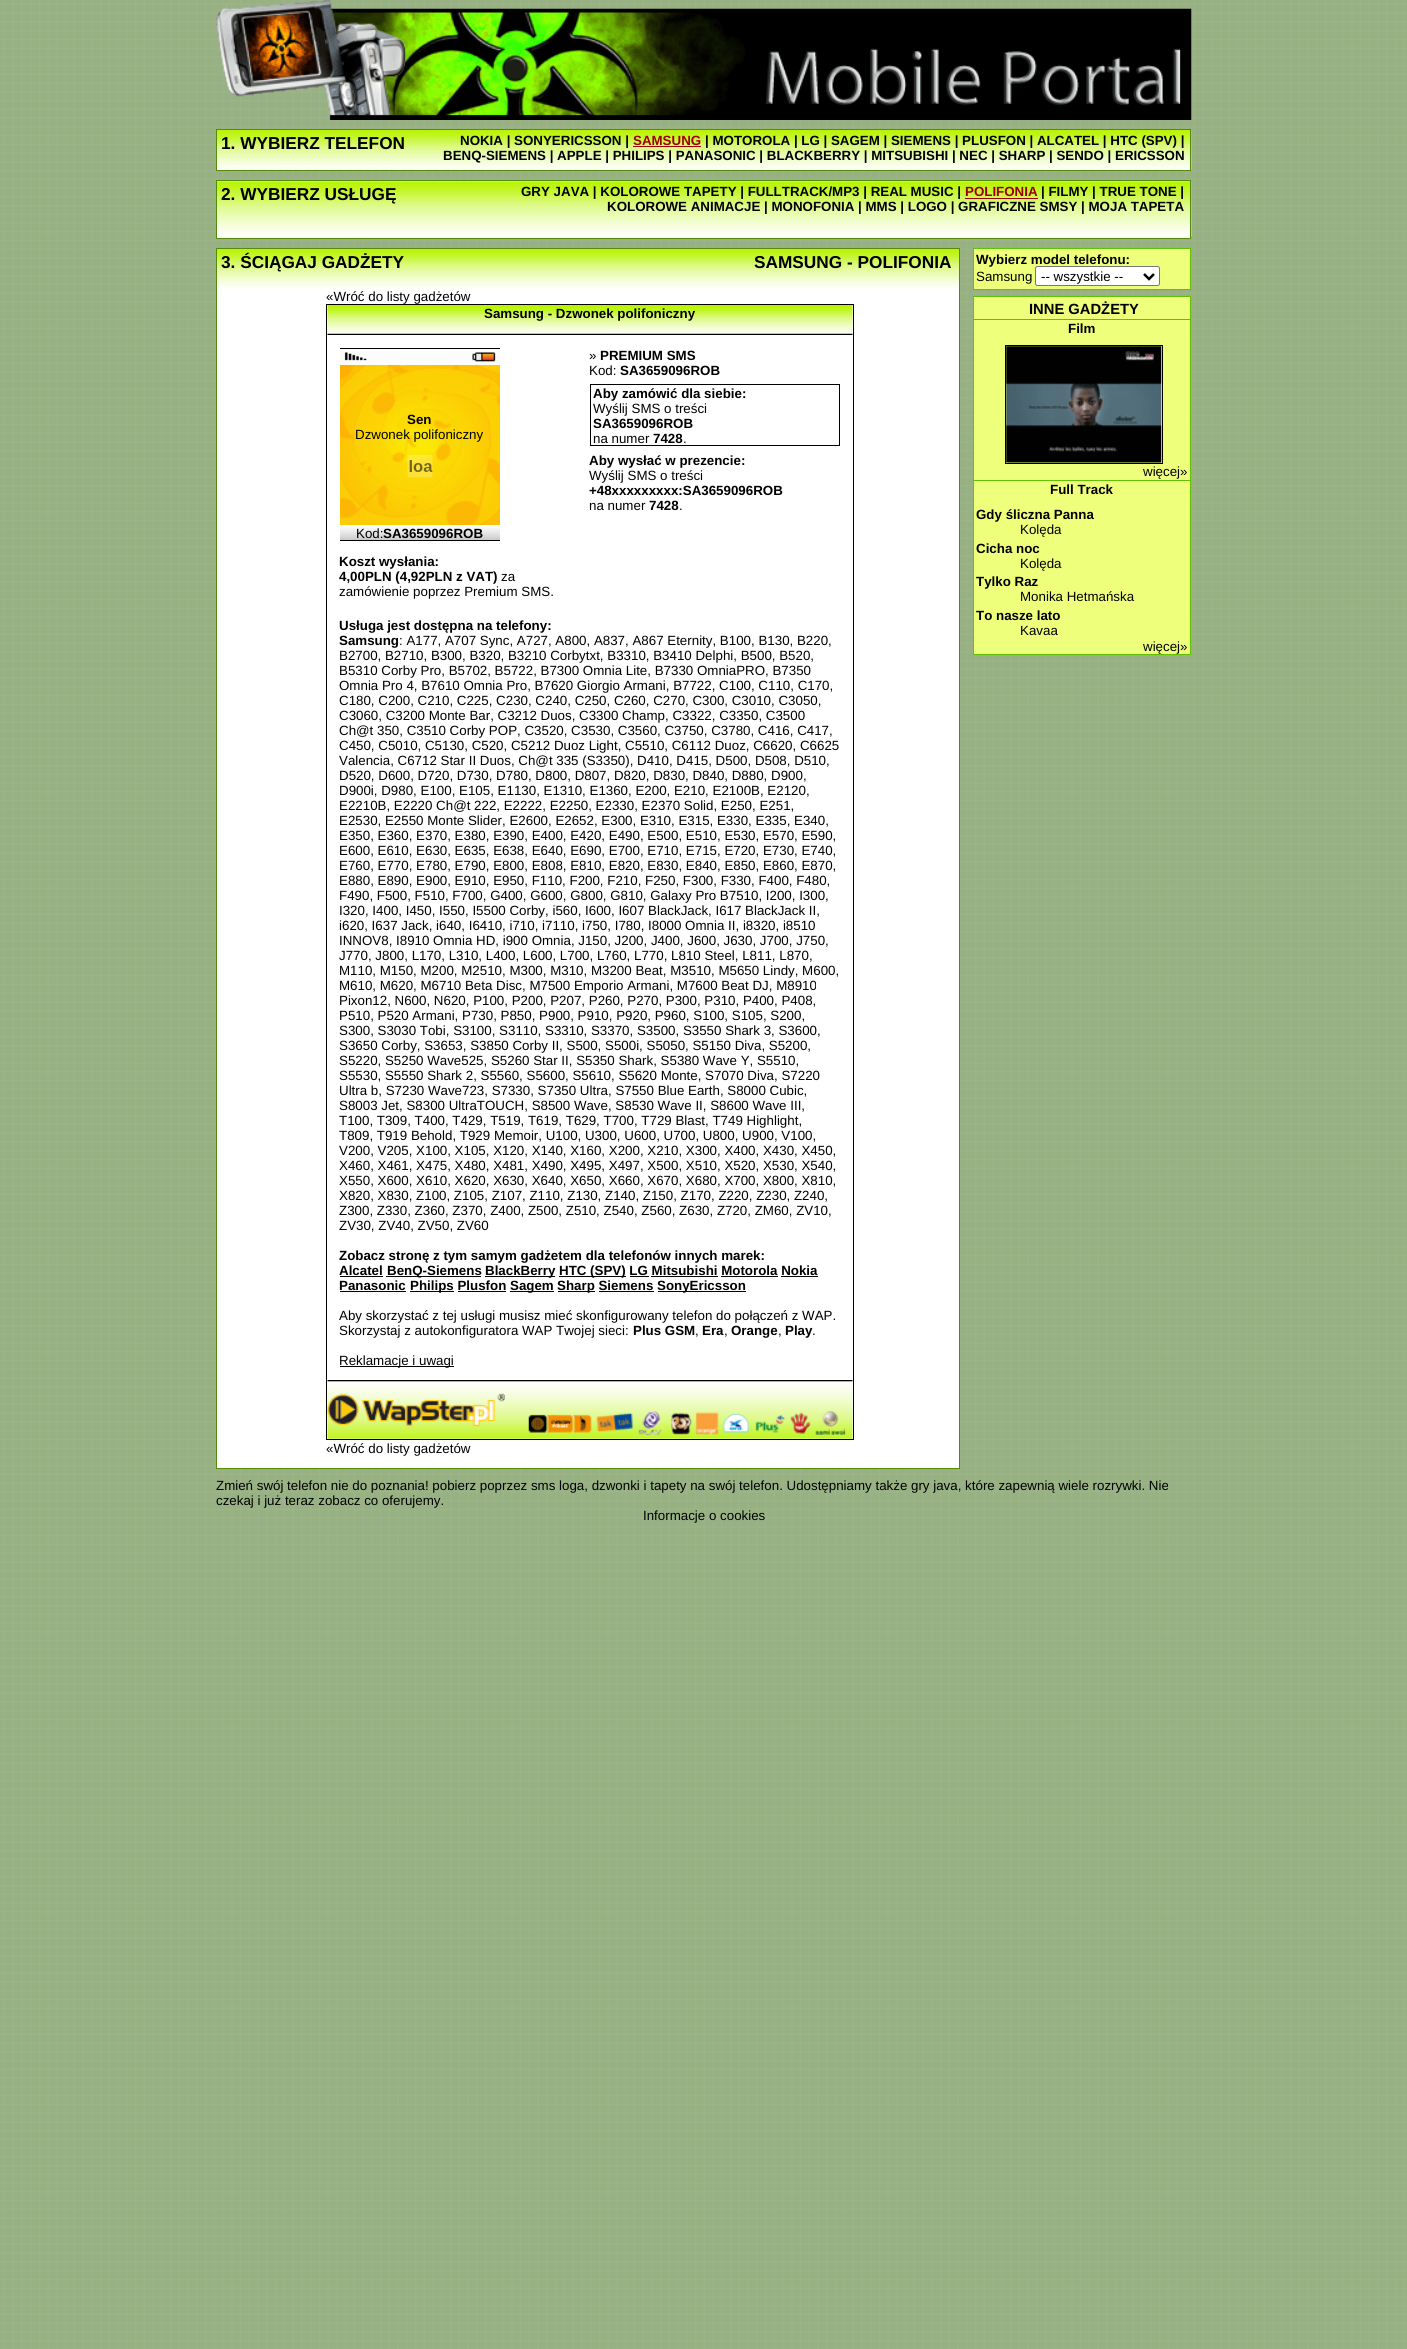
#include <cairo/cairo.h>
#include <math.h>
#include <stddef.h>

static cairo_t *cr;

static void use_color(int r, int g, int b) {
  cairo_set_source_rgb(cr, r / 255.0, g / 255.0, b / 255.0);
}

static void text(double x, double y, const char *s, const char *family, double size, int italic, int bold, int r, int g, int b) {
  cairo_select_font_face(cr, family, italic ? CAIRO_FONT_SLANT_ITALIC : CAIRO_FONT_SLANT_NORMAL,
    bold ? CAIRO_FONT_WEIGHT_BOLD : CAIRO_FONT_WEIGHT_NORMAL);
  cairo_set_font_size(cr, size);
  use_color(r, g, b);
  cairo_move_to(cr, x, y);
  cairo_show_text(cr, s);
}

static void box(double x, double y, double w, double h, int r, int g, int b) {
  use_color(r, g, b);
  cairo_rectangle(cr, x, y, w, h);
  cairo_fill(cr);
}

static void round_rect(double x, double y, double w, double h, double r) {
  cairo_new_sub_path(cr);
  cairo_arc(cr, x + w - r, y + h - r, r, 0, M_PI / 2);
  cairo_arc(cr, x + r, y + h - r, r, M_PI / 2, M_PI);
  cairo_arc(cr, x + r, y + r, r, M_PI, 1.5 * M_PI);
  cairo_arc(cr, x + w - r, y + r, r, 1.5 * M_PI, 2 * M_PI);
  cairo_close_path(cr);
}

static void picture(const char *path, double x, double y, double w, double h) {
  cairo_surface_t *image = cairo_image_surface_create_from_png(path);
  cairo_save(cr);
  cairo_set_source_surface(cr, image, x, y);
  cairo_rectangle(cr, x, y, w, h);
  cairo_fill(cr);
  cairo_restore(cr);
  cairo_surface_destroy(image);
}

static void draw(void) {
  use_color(255, 255, 255);
  cairo_paint(cr);
  picture("img_01.png", 0, 0, 1407, 2349);
  picture("img_02.png", 216, 0, 976, 120);
  picture("img_03.png", 217, 130, 975, 40);
  cairo_rectangle(cr, 216.5, 129.5, 974, 41);
  use_color(82, 140, 8);
  cairo_set_line_width(cr, 1);
  cairo_stroke(cr);
  box(633, 146, 68, 1, 158, 0, 0);
  box(217, 181, 973, 57, 255, 255, 255);
  picture("img_04.png", 217, 181, 975, 56);
  cairo_rectangle(cr, 216.5, 180.5, 974, 58);
  use_color(82, 140, 8);
  cairo_stroke(cr);
  box(965, 198, 73, 1, 158, 0, 0);
  box(217, 288, 742, 1180, 255, 255, 255);
  picture("img_05.png", 217, 249, 742, 40);
  cairo_rectangle(cr, 216.5, 248.5, 743, 1220);
  use_color(82, 140, 8);
  cairo_stroke(cr);
  cairo_rectangle(cr, 326.5, 304.5, 527, 1135);
  use_color(0, 0, 0);
  cairo_stroke(cr);
  picture("img_06.png", 327, 305, 526, 30);
  box(340, 348, 160, 1, 0, 0, 0);
  box(340, 540, 160, 1, 0, 0, 0);
  box(340, 349, 160, 16, 252, 252, 252);
  picture("img_07.png", 344, 352, 23, 9);
  picture("img_08.png", 472, 352, 24, 10);
  picture("img_09.png", 340, 365, 160, 160);
  picture("img_10.png", 407, 455, 26, 23);
  box(340, 525, 160, 2, 252, 252, 252);
  picture("img_11.png", 340, 527, 160, 13);
  cairo_rectangle(cr, 590.5, 384.5, 249, 61);
  use_color(0, 0, 0);
  cairo_stroke(cr);
  box(340, 1276, 43, 1, 0, 0, 0);
  box(386, 1276, 95, 1, 0, 0, 0);
  box(485, 1276, 70, 1, 0, 0, 0);
  box(559, 1276, 67, 1, 0, 0, 0);
  box(630, 1276, 19, 1, 0, 0, 0);
  box(651, 1276, 67, 1, 0, 0, 0);
  box(721, 1276, 57, 1, 0, 0, 0);
  box(781, 1276, 37, 1, 0, 0, 0);
  box(340, 1291, 66, 1, 0, 0, 0);
  box(410, 1291, 44, 1, 0, 0, 0);
  box(458, 1291, 48, 1, 0, 0, 0);
  box(510, 1291, 44, 1, 0, 0, 0);
  box(558, 1291, 37, 1, 0, 0, 0);
  box(599, 1291, 55, 1, 0, 0, 0);
  box(658, 1291, 88, 1, 0, 0, 0);
  box(340, 1366, 114, 1, 0, 0, 0);
  picture("img_12.png", 327, 1380, 526, 59);
  picture("img_13.png", 327, 1393, 178, 34);
  picture("img_14.png", 528, 1411, 318, 24);
  use_color(238, 255, 123);
  cairo_rectangle(cr, 973.5, 248.5, 217, 41);
  cairo_fill_preserve(cr);
  use_color(98, 194, 1);
  cairo_stroke(cr);
  use_color(238, 255, 123);
  cairo_rectangle(cr, 973.5, 296.5, 217, 358);
  cairo_fill_preserve(cr);
  use_color(98, 194, 1);
  cairo_stroke(cr);
  box(974, 319, 216, 1, 98, 194, 1);
  cairo_rectangle(cr, 1005.5, 345.5, 157, 118);
  use_color(0, 0, 0);
  cairo_stroke(cr);
  picture("img_15.png", 1006, 346, 156, 117);
  box(974, 480, 216, 1, 98, 194, 1);
  text(221, 149, "1. WYBIERZ TELEFON", "Liberation Sans", 17.25, 0, 1, 0, 0, 0);
  text(460, 145, "NOKIA | SONYERICSSON |", "Liberation Sans", 13.33, 0, 1, 0, 0, 0);
  text(633, 145, "SAMSUNG", "Liberation Sans", 13.33, 0, 1, 158, 0, 0);
  text(705, 145, "| MOTOROLA | LG | SAGEM | SIEMENS | PLUSFON | ALCATEL | HTC (SPV) |", "Liberation Sans", 13.33, 0, 1, 0, 0, 0);
  text(443, 160, "BENQ-SIEMENS | APPLE | PHILIPS | PANASONIC | BLACKBERRY | MITSUBISHI | NEC | SHARP | SENDO | ERICSSON", "Liberation Sans", 13.33, 0, 1, 0, 0, 0);
  text(221, 200, "2. WYBIERZ USŁUGĘ", "Liberation Sans", 17.25, 0, 1, 0, 0, 0);
  text(521, 196, "GRY JAVA | KOLOROWE TAPETY | FULLTRACK/MP3 | REAL MUSIC |", "Liberation Sans", 13.33, 0, 1, 0, 0, 0);
  text(965, 196, "POLIFONIA", "Liberation Sans", 13.33, 0, 1, 158, 0, 0);
  text(1041, 196, "| FILMY | TRUE TONE |", "Liberation Sans", 13.33, 0, 1, 0, 0, 0);
  text(607, 211, "KOLOROWE ANIMACJE | MONOFONIA | MMS | LOGO | GRAFICZNE SMSY | MOJA TAPETA", "Liberation Sans", 13.33, 0, 1, 0, 0, 0);
  text(221, 268, "3. ŚCIĄGAJ GADŻETY", "Liberation Sans", 17.25, 0, 1, 0, 0, 0);
  text(754, 268, "SAMSUNG - POLIFONIA", "Liberation Sans", 17.25, 0, 1, 0, 0, 0);
  text(326, 301, "«Wróć do listy gadżetów", "Liberation Sans", 13.33, 0, 0, 0, 0, 0);
  text(484, 318, "Samsung - Dzwonek polifoniczny", "Liberation Sans", 13.33, 0, 1, 0, 0, 0);
  text(407, 424, "Sen", "Liberation Sans", 13.33, 0, 1, 0, 0, 0);
  text(355, 439, "Dzwonek polifoniczny", "Liberation Sans", 13.33, 0, 0, 0, 0, 0);
  text(356, 538, "Kod:", "Liberation Sans", 13.33, 0, 0, 0, 0, 0);
  text(383, 538, "SA3659096ROB", "Liberation Sans", 13.33, 0, 1, 0, 0, 0);
  text(339, 566, "Koszt wysłania:", "Liberation Sans", 13.33, 0, 1, 0, 0, 0);
  text(339, 581, "4,00PLN (4,92PLN z VAT)", "Liberation Sans", 13.33, 0, 1, 0, 0, 0);
  text(501, 581, "za", "Liberation Sans", 13.33, 0, 0, 0, 0, 0);
  text(339, 596, "zamówienie poprzez Premium SMS.", "Liberation Sans", 13.33, 0, 0, 0, 0, 0);
  text(589, 360, "»", "Liberation Sans", 13.33, 0, 0, 0, 0, 0);
  text(600, 360, "PREMIUM SMS", "Liberation Sans", 13.33, 0, 1, 0, 0, 0);
  text(589, 375, "Kod:", "Liberation Sans", 13.33, 0, 0, 0, 0, 0);
  text(620, 375, "SA3659096ROB", "Liberation Sans", 13.33, 0, 1, 0, 0, 0);
  text(593, 398, "Aby zamówić dla siebie:", "Liberation Sans", 13.33, 0, 1, 0, 0, 0);
  text(593, 413, "Wyślij SMS o treści", "Liberation Sans", 13.33, 0, 0, 0, 0, 0);
  text(593, 428, "SA3659096ROB", "Liberation Sans", 13.33, 0, 1, 0, 0, 0);
  text(593, 443, "na numer", "Liberation Sans", 13.33, 0, 0, 0, 0, 0);
  text(653, 443, "7428", "Liberation Sans", 13.33, 0, 1, 0, 0, 0);
  text(683, 443, ".", "Liberation Sans", 13.33, 0, 0, 0, 0, 0);
  text(589, 465, "Aby wysłać w prezencie:", "Liberation Sans", 13.33, 0, 1, 0, 0, 0);
  text(589, 480, "Wyślij SMS o treści", "Liberation Sans", 13.33, 0, 0, 0, 0, 0);
  text(589, 495, "+48xxxxxxxxx:SA3659096ROB", "Liberation Sans", 13.33, 0, 1, 0, 0, 0);
  text(589, 510, "na numer", "Liberation Sans", 13.33, 0, 0, 0, 0, 0);
  text(649, 510, "7428", "Liberation Sans", 13.33, 0, 1, 0, 0, 0);
  text(679, 510, ".", "Liberation Sans", 13.33, 0, 0, 0, 0, 0);
  text(339, 630, "Usługa jest dostępna na telefony:", "Liberation Sans", 13.33, 0, 1, 0, 0, 0);
  text(339, 645, "Samsung", "Liberation Sans", 13.33, 0, 1, 0, 0, 0);
  text(399, 645, ": A177, A707 Sync, A727, A800, A837, A867 Eternity, B100, B130, B220,", "Liberation Sans", 13.33, 0, 0, 0, 0, 0);
  text(339, 660, "B2700, B2710, B300, B320, B3210 Corbytxt, B3310, B3410 Delphi, B500, B520,", "Liberation Sans", 13.33, 0, 0, 0, 0, 0);
  text(339, 675, "B5310 Corby Pro, B5702, B5722, B7300 Omnia Lite, B7330 OmniaPRO, B7350", "Liberation Sans", 13.33, 0, 0, 0, 0, 0);
  text(339, 690, "Omnia Pro 4, B7610 Omnia Pro, B7620 Giorgio Armani, B7722, C100, C110, C170,", "Liberation Sans", 13.33, 0, 0, 0, 0, 0);
  text(339, 705, "C180, C200, C210, C225, C230, C240, C250, C260, C270, C300, C3010, C3050,", "Liberation Sans", 13.33, 0, 0, 0, 0, 0);
  text(339, 720, "C3060, C3200 Monte Bar, C3212 Duos, C3300 Champ, C3322, C3350, C3500", "Liberation Sans", 13.33, 0, 0, 0, 0, 0);
  text(339, 735, "Ch@t 350, C3510 Corby POP, C3520, C3530, C3560, C3750, C3780, C416, C417,", "Liberation Sans", 13.33, 0, 0, 0, 0, 0);
  text(339, 750, "C450, C5010, C5130, C520, C5212 Duoz Light, C5510, C6112 Duoz, C6620, C6625", "Liberation Sans", 13.33, 0, 0, 0, 0, 0);
  text(339, 765, "Valencia, C6712 Star II Duos, Ch@t 335 (S3350), D410, D415, D500, D508, D510,", "Liberation Sans", 13.33, 0, 0, 0, 0, 0);
  text(339, 780, "D520, D600, D720, D730, D780, D800, D807, D820, D830, D840, D880, D900,", "Liberation Sans", 13.33, 0, 0, 0, 0, 0);
  text(339, 795, "D900i, D980, E100, E105, E1130, E1310, E1360, E200, E210, E2100B, E2120,", "Liberation Sans", 13.33, 0, 0, 0, 0, 0);
  text(339, 810, "E2210B, E2220 Ch@t 222, E2222, E2250, E2330, E2370 Solid, E250, E251,", "Liberation Sans", 13.33, 0, 0, 0, 0, 0);
  text(339, 825, "E2530, E2550 Monte Slider, E2600, E2652, E300, E310, E315, E330, E335, E340,", "Liberation Sans", 13.33, 0, 0, 0, 0, 0);
  text(339, 840, "E350, E360, E370, E380, E390, E400, E420, E490, E500, E510, E530, E570, E590,", "Liberation Sans", 13.33, 0, 0, 0, 0, 0);
  text(339, 855, "E600, E610, E630, E635, E638, E640, E690, E700, E710, E715, E720, E730, E740,", "Liberation Sans", 13.33, 0, 0, 0, 0, 0);
  text(339, 870, "E760, E770, E780, E790, E800, E808, E810, E820, E830, E840, E850, E860, E870,", "Liberation Sans", 13.33, 0, 0, 0, 0, 0);
  text(339, 885, "E880, E890, E900, E910, E950, F110, F200, F210, F250, F300, F330, F400, F480,", "Liberation Sans", 13.33, 0, 0, 0, 0, 0);
  text(339, 900, "F490, F500, F510, F700, G400, G600, G800, G810, Galaxy Pro B7510, I200, I300,", "Liberation Sans", 13.33, 0, 0, 0, 0, 0);
  text(339, 915, "I320, I400, I450, I550, I5500 Corby, i560, I600, I607 BlackJack, I617 BlackJack II,", "Liberation Sans", 13.33, 0, 0, 0, 0, 0);
  text(339, 930, "i620, I637 Jack, i640, I6410, i710, i7110, i750, I780, I8000 Omnia II, i8320, i8510", "Liberation Sans", 13.33, 0, 0, 0, 0, 0);
  text(339, 945, "INNOV8, I8910 Omnia HD, i900 Omnia, J150, J200, J400, J600, J630, J700, J750,", "Liberation Sans", 13.33, 0, 0, 0, 0, 0);
  text(339, 960, "J770, J800, L170, L310, L400, L600, L700, L760, L770, L810 Steel, L811, L870,", "Liberation Sans", 13.33, 0, 0, 0, 0, 0);
  text(339, 975, "M110, M150, M200, M2510, M300, M310, M3200 Beat, M3510, M5650 Lindy, M600,", "Liberation Sans", 13.33, 0, 0, 0, 0, 0);
  text(339, 990, "M610, M620, M6710 Beta Disc, M7500 Emporio Armani, M7600 Beat DJ, M8910", "Liberation Sans", 13.33, 0, 0, 0, 0, 0);
  text(339, 1005, "Pixon12, N600, N620, P100, P200, P207, P260, P270, P300, P310, P400, P408,", "Liberation Sans", 13.33, 0, 0, 0, 0, 0);
  text(339, 1020, "P510, P520 Armani, P730, P850, P900, P910, P920, P960, S100, S105, S200,", "Liberation Sans", 13.33, 0, 0, 0, 0, 0);
  text(339, 1035, "S300, S3030 Tobi, S3100, S3110, S3310, S3370, S3500, S3550 Shark 3, S3600,", "Liberation Sans", 13.33, 0, 0, 0, 0, 0);
  text(339, 1050, "S3650 Corby, S3653, S3850 Corby II, S500, S500i, S5050, S5150 Diva, S5200,", "Liberation Sans", 13.33, 0, 0, 0, 0, 0);
  text(339, 1065, "S5220, S5250 Wave525, S5260 Star II, S5350 Shark, S5380 Wave Y, S5510,", "Liberation Sans", 13.33, 0, 0, 0, 0, 0);
  text(339, 1080, "S5530, S5550 Shark 2, S5560, S5600, S5610, S5620 Monte, S7070 Diva, S7220", "Liberation Sans", 13.33, 0, 0, 0, 0, 0);
  text(339, 1095, "Ultra b, S7230 Wave723, S7330, S7350 Ultra, S7550 Blue Earth, S8000 Cubic,", "Liberation Sans", 13.33, 0, 0, 0, 0, 0);
  text(339, 1110, "S8003 Jet, S8300 UltraTOUCH, S8500 Wave, S8530 Wave II, S8600 Wave III,", "Liberation Sans", 13.33, 0, 0, 0, 0, 0);
  text(339, 1125, "T100, T309, T400, T429, T519, T619, T629, T700, T729 Blast, T749 Highlight,", "Liberation Sans", 13.33, 0, 0, 0, 0, 0);
  text(339, 1140, "T809, T919 Behold, T929 Memoir, U100, U300, U600, U700, U800, U900, V100,", "Liberation Sans", 13.33, 0, 0, 0, 0, 0);
  text(339, 1155, "V200, V205, X100, X105, X120, X140, X160, X200, X210, X300, X400, X430, X450,", "Liberation Sans", 13.33, 0, 0, 0, 0, 0);
  text(339, 1170, "X460, X461, X475, X480, X481, X490, X495, X497, X500, X510, X520, X530, X540,", "Liberation Sans", 13.33, 0, 0, 0, 0, 0);
  text(339, 1185, "X550, X600, X610, X620, X630, X640, X650, X660, X670, X680, X700, X800, X810,", "Liberation Sans", 13.33, 0, 0, 0, 0, 0);
  text(339, 1200, "X820, X830, Z100, Z105, Z107, Z110, Z130, Z140, Z150, Z170, Z220, Z230, Z240,", "Liberation Sans", 13.33, 0, 0, 0, 0, 0);
  text(339, 1215, "Z300, Z330, Z360, Z370, Z400, Z500, Z510, Z540, Z560, Z630, Z720, ZM60, ZV10,", "Liberation Sans", 13.33, 0, 0, 0, 0, 0);
  text(339, 1230, "ZV30, ZV40, ZV50, ZV60", "Liberation Sans", 13.33, 0, 0, 0, 0, 0);
  text(339, 1260, "Zobacz stronę z tym samym gadżetem dla telefonów innych marek:", "Liberation Sans", 13.33, 0, 1, 0, 0, 0);
  text(339, 1275, "Alcatel", "Liberation Sans", 13.33, 0, 1, 0, 0, 0);
  text(387, 1275, "BenQ-Siemens", "Liberation Sans", 13.33, 0, 1, 0, 0, 0);
  text(485, 1275, "BlackBerry", "Liberation Sans", 13.33, 0, 1, 0, 0, 0);
  text(559, 1275, "HTC (SPV) LG Mitsubishi Motorola Nokia", "Liberation Sans", 13.33, 0, 1, 0, 0, 0);
  text(339, 1290, "Panasonic", "Liberation Sans", 13.33, 0, 1, 0, 0, 0);
  text(410, 1290, "Philips Plusfon", "Liberation Sans", 13.33, 0, 1, 0, 0, 0);
  text(510, 1290, "Sagem", "Liberation Sans", 13.33, 0, 1, 0, 0, 0);
  text(557, 1290, "Sharp Siemens", "Liberation Sans", 13.33, 0, 1, 0, 0, 0);
  text(657, 1290, "SonyEricsson", "Liberation Sans", 13.33, 0, 1, 0, 0, 0);
  text(339, 1320, "Aby skorzystać z tej usługi musisz mieć skonfigurowany telefon do połączeń z WAP.", "Liberation Sans", 13.33, 0, 0, 0, 0, 0);
  text(339, 1335, "Skorzystaj z autokonfiguratora WAP Twojej sieci:", "Liberation Sans", 13.33, 0, 0, 0, 0, 0);
  text(633, 1335, "Plus GSM", "Liberation Sans", 13.33, 0, 1, 0, 0, 0);
  text(695, 1335, ",", "Liberation Sans", 13.33, 0, 0, 0, 0, 0);
  text(702, 1335, "Era", "Liberation Sans", 13.33, 0, 1, 0, 0, 0);
  text(724, 1335, ",", "Liberation Sans", 13.33, 0, 0, 0, 0, 0);
  text(731, 1335, "Orange", "Liberation Sans", 13.33, 0, 1, 0, 0, 0);
  text(778, 1335, ",", "Liberation Sans", 13.33, 0, 0, 0, 0, 0);
  text(785, 1335, "Play", "Liberation Sans", 13.33, 0, 1, 0, 0, 0);
  text(812, 1335, ".", "Liberation Sans", 13.33, 0, 0, 0, 0, 0);
  text(339, 1365, "Reklamacje i uwagi", "Liberation Sans", 13.33, 0, 0, 0, 0, 0);
  text(326, 1453, "«Wróć do listy gadżetów", "Liberation Sans", 13.33, 0, 0, 0, 0, 0);
  text(976, 264, "Wybierz model telefonu:", "Liberation Sans", 13.33, 0, 1, 0, 0, 0);
  text(976, 281, "Samsung", "Liberation Sans", 13.33, 0, 0, 0, 0, 0);
  use_color(255, 255, 255);
  round_rect(1035.5, 266.5, 124, 19, 2);
  cairo_fill_preserve(cr);
  use_color(118, 118, 118);
  cairo_stroke(cr);
  cairo_new_path(cr);
  cairo_move_to(cr, 1144, 274);
  cairo_line_to(cr, 1149, 279);
  cairo_line_to(cr, 1154, 274);
  use_color(0, 0, 0);
  cairo_set_line_width(cr, 2.5);
  cairo_stroke(cr);
  text(1041, 281, "-- wszystkie --", "Liberation Sans", 13.33, 0, 0, 0, 0, 0);
  text(1029, 314, "INNE GADŻETY", "Liberation Sans", 14.75, 0, 1, 0, 0, 0);
  text(1068, 333, "Film", "Liberation Sans", 13.33, 0, 1, 0, 0, 0);
  text(1143, 476, "więcej»", "Liberation Sans", 13.33, 0, 0, 0, 0, 0);
  text(1050, 494, "Full Track", "Liberation Sans", 13.33, 0, 1, 0, 0, 0);
  text(976, 519, "Gdy śliczna Panna", "Liberation Sans", 13.33, 0, 1, 0, 0, 0);
  text(1020, 534, "Kolęda", "Liberation Sans", 13.33, 0, 0, 0, 0, 0);
  text(976, 553, "Cicha noc", "Liberation Sans", 13.33, 0, 1, 0, 0, 0);
  text(1020, 568, "Kolęda", "Liberation Sans", 13.33, 0, 0, 0, 0, 0);
  text(976, 586, "Tylko Raz", "Liberation Sans", 13.33, 0, 1, 0, 0, 0);
  text(1020, 601, "Monika Hetmańska", "Liberation Sans", 13.33, 0, 0, 0, 0, 0);
  text(976, 620, "To nasze lato", "Liberation Sans", 13.33, 0, 1, 0, 0, 0);
  text(1020, 635, "Kavaa", "Liberation Sans", 13.33, 0, 0, 0, 0, 0);
  text(1143, 651, "więcej»", "Liberation Sans", 13.33, 0, 0, 0, 0, 0);
  text(216, 1490, "Zmień swój telefon nie do poznania! pobierz poprzez sms loga, dzwonki i tapety na swój telefon. Udostępniamy także gry java, które zapewnią wiele rozrywki. Nie", "Liberation Sans", 13.33, 0, 0, 0, 0, 0);
  text(216, 1505, "czekaj i już teraz zobacz co oferujemy.", "Liberation Sans", 13.33, 0, 0, 0, 0, 0);
  text(643, 1520, "Informacje o cookies", "Liberation Sans", 13.33, 0, 0, 0, 0, 0);
}

int main(void) {
  cairo_surface_t *surface = cairo_image_surface_create(CAIRO_FORMAT_RGB24, 1407, 2349);
  cr = cairo_create(surface);
  cairo_font_options_t *options = cairo_font_options_create();
  cairo_font_options_set_hint_metrics(options, CAIRO_HINT_METRICS_OFF);
  cairo_font_options_set_hint_style(options, CAIRO_HINT_STYLE_NONE);
  cairo_set_font_options(cr, options);
  cairo_set_miter_limit(cr, 4);
  draw();
  cairo_surface_write_to_png(surface, "out.png");
  cairo_font_options_destroy(options);
  cairo_destroy(cr);
  cairo_surface_destroy(surface);
  return 0;
}
